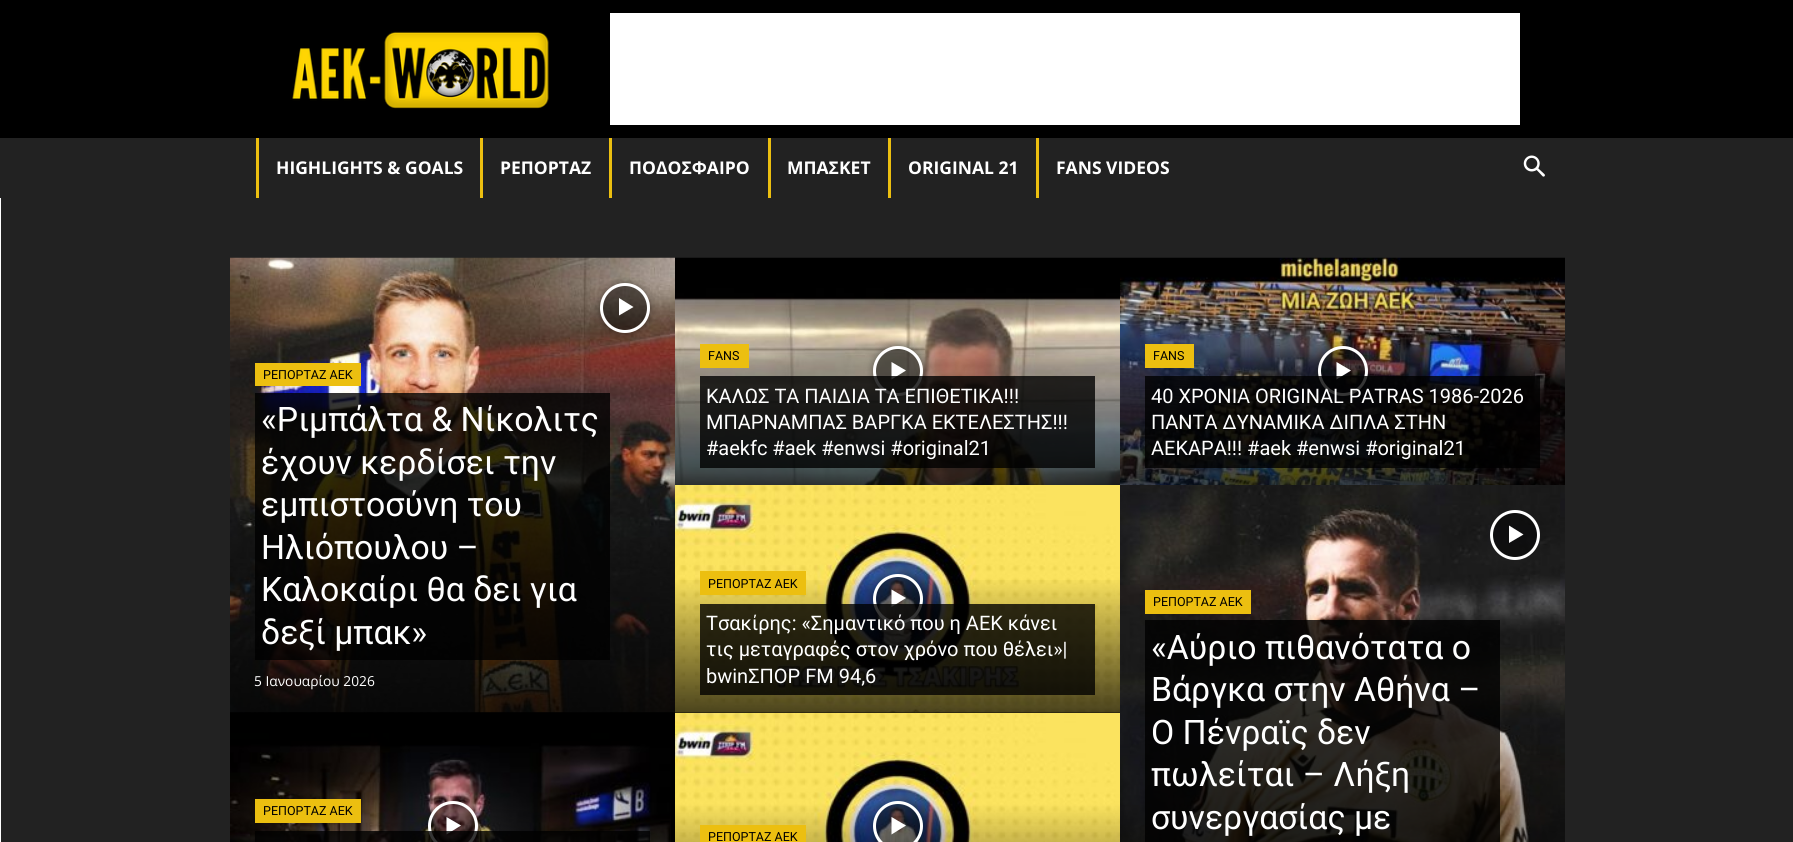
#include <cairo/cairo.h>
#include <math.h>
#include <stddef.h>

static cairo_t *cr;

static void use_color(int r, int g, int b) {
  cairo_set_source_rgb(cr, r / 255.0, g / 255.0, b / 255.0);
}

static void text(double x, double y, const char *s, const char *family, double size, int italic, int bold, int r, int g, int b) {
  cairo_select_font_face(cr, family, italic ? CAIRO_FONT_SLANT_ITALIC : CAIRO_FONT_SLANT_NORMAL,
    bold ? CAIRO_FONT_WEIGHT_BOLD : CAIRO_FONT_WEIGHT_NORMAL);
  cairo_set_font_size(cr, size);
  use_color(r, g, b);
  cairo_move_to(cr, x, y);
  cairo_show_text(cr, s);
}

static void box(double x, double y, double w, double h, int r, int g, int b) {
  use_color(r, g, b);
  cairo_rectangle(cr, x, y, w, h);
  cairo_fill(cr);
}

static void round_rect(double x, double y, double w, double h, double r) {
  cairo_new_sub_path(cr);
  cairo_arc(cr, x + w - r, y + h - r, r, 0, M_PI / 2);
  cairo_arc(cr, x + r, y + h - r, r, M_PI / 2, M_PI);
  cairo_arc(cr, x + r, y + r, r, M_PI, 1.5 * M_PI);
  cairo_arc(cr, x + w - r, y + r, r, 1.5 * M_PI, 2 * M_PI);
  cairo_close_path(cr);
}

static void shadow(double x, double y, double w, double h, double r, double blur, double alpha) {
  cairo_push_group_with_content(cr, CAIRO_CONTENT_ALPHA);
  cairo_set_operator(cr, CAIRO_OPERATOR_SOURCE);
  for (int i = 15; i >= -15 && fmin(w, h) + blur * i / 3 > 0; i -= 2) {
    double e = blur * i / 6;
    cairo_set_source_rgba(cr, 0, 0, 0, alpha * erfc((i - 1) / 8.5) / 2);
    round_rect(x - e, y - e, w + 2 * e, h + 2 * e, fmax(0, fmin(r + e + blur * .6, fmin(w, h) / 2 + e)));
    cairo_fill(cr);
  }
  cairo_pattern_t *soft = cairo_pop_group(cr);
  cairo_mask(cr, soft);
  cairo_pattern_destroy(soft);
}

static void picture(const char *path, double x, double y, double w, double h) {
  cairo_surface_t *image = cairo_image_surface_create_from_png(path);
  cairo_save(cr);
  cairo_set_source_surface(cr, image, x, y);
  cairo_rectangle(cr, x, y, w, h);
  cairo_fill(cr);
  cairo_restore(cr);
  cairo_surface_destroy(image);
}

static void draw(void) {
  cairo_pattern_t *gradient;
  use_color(255, 255, 255);
  cairo_paint(cr);
  box(0, 0, 1793, 138, 0, 0, 0);
  picture("img_01.png", 292, 31, 257, 78);
  box(610, 13, 910, 112, 255, 255, 255);
  box(0, 138, 1793, 60, 34, 34, 34);
  box(256, 138, 3, 60, 236, 191, 16);
  box(480, 138, 3, 60, 236, 191, 16);
  box(609, 138, 3, 60, 236, 191, 16);
  box(768, 138, 3, 60, 236, 191, 16);
  box(888, 138, 3, 60, 236, 191, 16);
  box(1036, 138, 3, 60, 236, 191, 16);
  picture("img_02.png", 1523, 155, 22, 22);
  box(1, 198, 1792, 644, 34, 34, 34);
  box(230, 712, 890, 1, 0, 0, 0);
  picture("img_03.png", 230, 257, 445, 456);
  cairo_save(cr);
  cairo_set_fill_rule(cr, CAIRO_FILL_RULE_EVEN_ODD);
  cairo_new_path(cr);
  cairo_move_to(cr, 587, 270);
  cairo_line_to(cr, 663, 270);
  cairo_line_to(cr, 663, 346);
  cairo_line_to(cr, 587, 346);
  cairo_close_path(cr);
  cairo_move_to(cr, 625, 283);
  cairo_curve_to(cr, 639, 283, 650, 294, 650, 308);
  cairo_curve_to(cr, 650, 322, 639, 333, 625, 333);
  cairo_curve_to(cr, 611, 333, 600, 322, 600, 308);
  cairo_curve_to(cr, 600, 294, 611, 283, 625, 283);
  cairo_close_path(cr);
  cairo_clip(cr);
  use_color(0, 0, 0);
  shadow(600, 283, 50, 50, 25, 4, 0.4);
  cairo_restore(cr);
  cairo_set_source_rgba(cr, 0, 0, 0, 0.48);
  cairo_arc(cr, 625, 308, 23.5, 0, 2 * M_PI);
  cairo_fill_preserve(cr);
  use_color(255, 255, 255);
  cairo_set_line_width(cr, 3);
  cairo_stroke(cr);
  cairo_new_path(cr);
  cairo_move_to(cr, 619, 298);
  cairo_line_to(cr, 619, 315.5);
  cairo_line_to(cr, 633.5, 307);
  cairo_close_path(cr);
  cairo_fill(cr);
  picture("img_04.png", 230, 712, 441, 130);
  gradient = cairo_pattern_create_linear(453, 257, 453, 713);
  cairo_pattern_add_color_stop_rgba(gradient, 0.4, 0, 0, 0, 0);
  cairo_pattern_add_color_stop_rgba(gradient, 1, 0, 0, 0, 0.7);
  cairo_set_source(cr, gradient);
  cairo_pattern_destroy(gradient);
  cairo_rectangle(cr, 230, 448, 445, 265);
  cairo_fill(cr);
  box(255, 363, 106, 23, 236, 191, 16);
  cairo_set_source_rgba(cr, 0, 0, 0, 0.79);
  cairo_rectangle(cr, 255, 393, 355, 267);
  cairo_fill(cr);
  box(671, 713, 4, 129, 0, 0, 0);
  cairo_save(cr);
  cairo_set_fill_rule(cr, CAIRO_FILL_RULE_EVEN_ODD);
  cairo_new_path(cr);
  cairo_move_to(cr, 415, 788);
  cairo_line_to(cr, 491, 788);
  cairo_line_to(cr, 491, 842);
  cairo_line_to(cr, 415, 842);
  cairo_close_path(cr);
  cairo_move_to(cr, 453, 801);
  cairo_curve_to(cr, 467, 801, 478, 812, 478, 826);
  cairo_curve_to(cr, 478, 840, 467, 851, 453, 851);
  cairo_curve_to(cr, 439, 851, 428, 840, 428, 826);
  cairo_curve_to(cr, 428, 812, 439, 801, 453, 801);
  cairo_close_path(cr);
  cairo_clip(cr);
  use_color(0, 0, 0);
  shadow(428, 801, 50, 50, 25, 4, 0.4);
  cairo_restore(cr);
  cairo_set_source_rgba(cr, 0, 0, 0, 0.48);
  cairo_arc(cr, 453, 826, 23.5, 0, 2 * M_PI);
  cairo_fill_preserve(cr);
  use_color(255, 255, 255);
  cairo_stroke(cr);
  cairo_new_path(cr);
  cairo_move_to(cr, 446.5, 817);
  cairo_line_to(cr, 446.5, 834.5);
  cairo_line_to(cr, 461, 825.5);
  cairo_close_path(cr);
  cairo_fill(cr);
  box(255, 799, 106, 24, 236, 191, 16);
  cairo_set_source_rgba(cr, 0, 0, 0, 0.79);
  cairo_rectangle(cr, 255, 831, 395, 11);
  cairo_fill(cr);
  picture("img_05.png", 675, 257, 445, 228);
  cairo_save(cr);
  cairo_set_fill_rule(cr, CAIRO_FILL_RULE_EVEN_ODD);
  cairo_new_path(cr);
  cairo_move_to(cr, 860, 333);
  cairo_line_to(cr, 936, 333);
  cairo_line_to(cr, 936, 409);
  cairo_line_to(cr, 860, 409);
  cairo_close_path(cr);
  cairo_move_to(cr, 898, 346);
  cairo_curve_to(cr, 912, 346, 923, 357, 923, 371);
  cairo_curve_to(cr, 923, 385, 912, 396, 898, 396);
  cairo_curve_to(cr, 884, 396, 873, 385, 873, 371);
  cairo_curve_to(cr, 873, 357, 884, 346, 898, 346);
  cairo_close_path(cr);
  cairo_clip(cr);
  use_color(0, 0, 0);
  shadow(873, 346, 50, 50, 25, 4, 0.4);
  cairo_restore(cr);
  cairo_set_source_rgba(cr, 0, 0, 0, 0.48);
  cairo_arc(cr, 898, 371, 23.5, 0, 2 * M_PI);
  cairo_fill_preserve(cr);
  use_color(255, 255, 255);
  cairo_stroke(cr);
  cairo_new_path(cr);
  cairo_move_to(cr, 891.5, 362);
  cairo_line_to(cr, 891.5, 379.5);
  cairo_line_to(cr, 906, 370.5);
  cairo_close_path(cr);
  cairo_fill(cr);
  box(700, 344, 49, 24, 236, 191, 16);
  cairo_set_source_rgba(cr, 0, 0, 0, 0.79);
  cairo_rectangle(cr, 700, 376, 395, 92);
  cairo_fill(cr);
  picture("img_06.png", 675, 485, 445, 228);
  picture("img_07.png", 675, 712, 445, 130);
  gradient = cairo_pattern_create_linear(898, 485, 898, 713);
  cairo_pattern_add_color_stop_rgba(gradient, 0.4, 0, 0, 0, 0);
  cairo_pattern_add_color_stop_rgba(gradient, 1, 0, 0, 0, 0.7);
  cairo_set_source(cr, gradient);
  cairo_pattern_destroy(gradient);
  cairo_rectangle(cr, 675, 580, 445, 133);
  cairo_fill(cr);
  cairo_save(cr);
  cairo_set_fill_rule(cr, CAIRO_FILL_RULE_EVEN_ODD);
  cairo_new_path(cr);
  cairo_move_to(cr, 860, 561);
  cairo_line_to(cr, 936, 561);
  cairo_line_to(cr, 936, 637);
  cairo_line_to(cr, 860, 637);
  cairo_close_path(cr);
  cairo_move_to(cr, 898, 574);
  cairo_curve_to(cr, 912, 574, 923, 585, 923, 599);
  cairo_curve_to(cr, 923, 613, 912, 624, 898, 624);
  cairo_curve_to(cr, 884, 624, 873, 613, 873, 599);
  cairo_curve_to(cr, 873, 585, 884, 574, 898, 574);
  cairo_close_path(cr);
  cairo_clip(cr);
  use_color(0, 0, 0);
  shadow(873, 574, 50, 50, 25, 4, 0.4);
  cairo_restore(cr);
  cairo_set_source_rgba(cr, 0, 0, 0, 0.48);
  cairo_arc(cr, 898, 599, 23.5, 0, 2 * M_PI);
  cairo_fill_preserve(cr);
  use_color(255, 255, 255);
  cairo_stroke(cr);
  cairo_new_path(cr);
  cairo_move_to(cr, 891.5, 589.5);
  cairo_line_to(cr, 891.5, 607);
  cairo_line_to(cr, 906, 598);
  cairo_close_path(cr);
  cairo_fill(cr);
  box(700, 571, 106, 24, 236, 191, 16);
  cairo_set_source_rgba(cr, 0, 0, 0, 0.79);
  cairo_rectangle(cr, 700, 604, 395, 91);
  cairo_fill(cr);
  cairo_save(cr);
  cairo_set_fill_rule(cr, CAIRO_FILL_RULE_EVEN_ODD);
  cairo_new_path(cr);
  cairo_move_to(cr, 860, 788);
  cairo_line_to(cr, 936, 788);
  cairo_line_to(cr, 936, 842);
  cairo_line_to(cr, 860, 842);
  cairo_close_path(cr);
  cairo_move_to(cr, 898, 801);
  cairo_curve_to(cr, 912, 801, 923, 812, 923, 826);
  cairo_curve_to(cr, 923, 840, 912, 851, 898, 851);
  cairo_curve_to(cr, 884, 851, 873, 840, 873, 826);
  cairo_curve_to(cr, 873, 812, 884, 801, 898, 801);
  cairo_close_path(cr);
  cairo_clip(cr);
  use_color(0, 0, 0);
  shadow(873, 801, 50, 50, 25, 4, 0.4);
  cairo_restore(cr);
  cairo_set_source_rgba(cr, 0, 0, 0, 0.48);
  cairo_arc(cr, 898, 826, 23.5, 0, 2 * M_PI);
  cairo_fill_preserve(cr);
  use_color(255, 255, 255);
  cairo_stroke(cr);
  cairo_new_path(cr);
  cairo_move_to(cr, 891.5, 817);
  cairo_line_to(cr, 891.5, 834.5);
  cairo_line_to(cr, 906, 825.5);
  cairo_close_path(cr);
  cairo_fill(cr);
  box(700, 825, 106, 17, 236, 191, 16);
  picture("img_08.png", 1120, 257, 445, 228);
  cairo_save(cr);
  cairo_set_fill_rule(cr, CAIRO_FILL_RULE_EVEN_ODD);
  cairo_new_path(cr);
  cairo_move_to(cr, 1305, 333);
  cairo_line_to(cr, 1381, 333);
  cairo_line_to(cr, 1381, 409);
  cairo_line_to(cr, 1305, 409);
  cairo_close_path(cr);
  cairo_move_to(cr, 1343, 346);
  cairo_curve_to(cr, 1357, 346, 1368, 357, 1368, 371);
  cairo_curve_to(cr, 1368, 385, 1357, 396, 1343, 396);
  cairo_curve_to(cr, 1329, 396, 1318, 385, 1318, 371);
  cairo_curve_to(cr, 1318, 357, 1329, 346, 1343, 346);
  cairo_close_path(cr);
  cairo_clip(cr);
  use_color(0, 0, 0);
  shadow(1318, 346, 50, 50, 25, 4, 0.4);
  cairo_restore(cr);
  cairo_set_source_rgba(cr, 0, 0, 0, 0.48);
  cairo_arc(cr, 1343, 371, 23.5, 0, 2 * M_PI);
  cairo_fill_preserve(cr);
  use_color(255, 255, 255);
  cairo_stroke(cr);
  cairo_new_path(cr);
  cairo_move_to(cr, 1336.5, 362);
  cairo_line_to(cr, 1336.5, 379.5);
  cairo_line_to(cr, 1351, 370.5);
  cairo_close_path(cr);
  cairo_fill(cr);
  box(1145, 344, 49, 24, 236, 191, 16);
  cairo_set_source_rgba(cr, 0, 0, 0, 0.79);
  cairo_rectangle(cr, 1145, 376, 395, 92);
  cairo_fill(cr);
  picture("img_09.png", 1120, 485, 445, 357);
  cairo_set_source_rgba(cr, 0, 0, 0, 0.48);
  cairo_arc(cr, 1515, 535, 23.5, 0, 2 * M_PI);
  cairo_fill_preserve(cr);
  use_color(255, 255, 255);
  cairo_stroke(cr);
  cairo_new_path(cr);
  cairo_move_to(cr, 1509, 525.5);
  cairo_line_to(cr, 1509, 543);
  cairo_line_to(cr, 1523.5, 534.5);
  cairo_close_path(cr);
  cairo_fill(cr);
  box(1145, 590, 106, 24, 236, 191, 16);
  cairo_set_source_rgba(cr, 0, 0, 0, 0.79);
  cairo_rectangle(cr, 1145, 620, 355, 222);
  cairo_fill(cr);
  text(276, 174, "HIGHLIGHTS & GOALS", "Open Sans", 17.5, 0, 1, 255, 255, 255);
  text(500, 174, "ΡΕΠΟΡΤΑΖ", "Open Sans", 17.5, 0, 1, 255, 255, 255);
  text(629, 174, "ΠΟΔΟΣΦΑΙΡΟ", "Open Sans", 17.5, 0, 1, 255, 255, 255);
  text(787, 174, "ΜΠΑΣΚΕΤ", "Open Sans", 17.5, 0, 1, 255, 255, 255);
  text(908, 174, "ORIGINAL 21", "Open Sans", 17.5, 0, 1, 255, 255, 255);
  text(1056, 174, "FANS VIDEOS", "Open Sans", 17.5, 0, 1, 255, 255, 255);
  text(263, 379, "ΡΕΠΟΡΤΑΖ ΑΕΚ", "Roboto", 12.5, 0, 0, 0, 0, 0);
  text(261, 431, "«Ριμπάλτα & Νίκολιτς", "Roboto", 33.75, 0, 0, 255, 255, 255);
  text(261, 474, "έχουν κερδίσει την", "Roboto", 33.75, 0, 0, 255, 255, 255);
  text(261, 516, "εμπιστοσύνη του", "Roboto", 33.75, 0, 0, 255, 255, 255);
  text(261, 559, "Ηλιόπουλου –", "Roboto", 33.75, 0, 0, 255, 255, 255);
  text(261, 601, "Καλοκαίρι θα δει για", "Roboto", 33.75, 0, 0, 255, 255, 255);
  text(261, 644, "δεξί μπακ»", "Roboto", 33.75, 0, 0, 255, 255, 255);
  text(254, 686, "5 Ιανουαρίου 2026", "Open Sans", 13.75, 0, 0, 255, 255, 255);
  text(263, 815, "ΡΕΠΟΡΤΑΖ ΑΕΚ", "Roboto", 12.5, 0, 0, 0, 0, 0);
  text(708, 360, "FANS", "Roboto", 12.5, 0, 0, 0, 0, 0);
  text(706, 403, "ΚΑΛΩΣ ΤΑ ΠΑΙΔΙΑ ΤΑ ΕΠΙΘΕΤΙΚΑ!!!", "Roboto", 20, 0, 0, 255, 255, 255);
  text(706, 429, "ΜΠΑΡΝΑΜΠΑΣ ΒΑΡΓΚΑ ΕΚΤΕΛΕΣΤΗΣ!!!", "Roboto", 20, 0, 0, 255, 255, 255);
  text(706, 455, "#aekfc #aek #enwsi #original21", "Roboto", 20, 0, 0, 255, 255, 255);
  text(708, 588, "ΡΕΠΟΡΤΑΖ ΑΕΚ", "Roboto", 12.5, 0, 0, 0, 0, 0);
  text(706, 630, "Τσακίρης: «Σημαντικό που η ΑΕΚ κάνει", "Roboto", 20, 0, 0, 255, 255, 255);
  text(706, 656, "τις μεταγραφές στον χρόνο που θέλει»|", "Roboto", 20, 0, 0, 255, 255, 255);
  text(706, 683, "bwinΣΠΟΡ FM 94,6", "Roboto", 20, 0, 0, 255, 255, 255);
  text(708, 841, "ΡΕΠΟΡΤΑΖ ΑΕΚ", "Roboto", 12.5, 0, 0, 0, 0, 0);
  text(1153, 360, "FANS", "Roboto", 12.5, 0, 0, 0, 0, 0);
  text(1151, 403, "40 ΧΡΟΝΙΑ ORIGINAL PATRAS 1986-2026", "Roboto", 20, 0, 0, 255, 255, 255);
  text(1151, 429, "ΠΑΝΤΑ ΔΥΝΑΜΙΚΑ ΔΙΠΛΑ ΣΤΗΝ", "Roboto", 20, 0, 0, 255, 255, 255);
  text(1151, 455, "ΑΕΚΑΡΑ!!! #aek #enwsi #original21", "Roboto", 20, 0, 0, 255, 255, 255);
  text(1153, 606, "ΡΕΠΟΡΤΑΖ ΑΕΚ", "Roboto", 12.5, 0, 0, 0, 0, 0);
  text(1151, 659, "«Αύριο πιθανότατα ο", "Roboto", 33.75, 0, 0, 255, 255, 255);
  text(1151, 701, "Βάργκα στην Αθήνα –", "Roboto", 33.75, 0, 0, 255, 255, 255);
  text(1151, 744, "Ο Πένραϊς δεν", "Roboto", 33.75, 0, 0, 255, 255, 255);
  text(1151, 786, "πωλείται – Λήξη", "Roboto", 33.75, 0, 0, 255, 255, 255);
  text(1151, 829, "συνεργασίας με", "Roboto", 33.75, 0, 0, 255, 255, 255);
}

int main(void) {
  cairo_surface_t *surface = cairo_image_surface_create(CAIRO_FORMAT_RGB24, 1793, 842);
  cr = cairo_create(surface);
  cairo_font_options_t *options = cairo_font_options_create();
  cairo_font_options_set_hint_metrics(options, CAIRO_HINT_METRICS_OFF);
  cairo_font_options_set_hint_style(options, CAIRO_HINT_STYLE_NONE);
  cairo_set_font_options(cr, options);
  cairo_set_miter_limit(cr, 4);
  draw();
  cairo_surface_write_to_png(surface, "out.png");
  cairo_font_options_destroy(options);
  cairo_destroy(cr);
  cairo_surface_destroy(surface);
  return 0;
}
